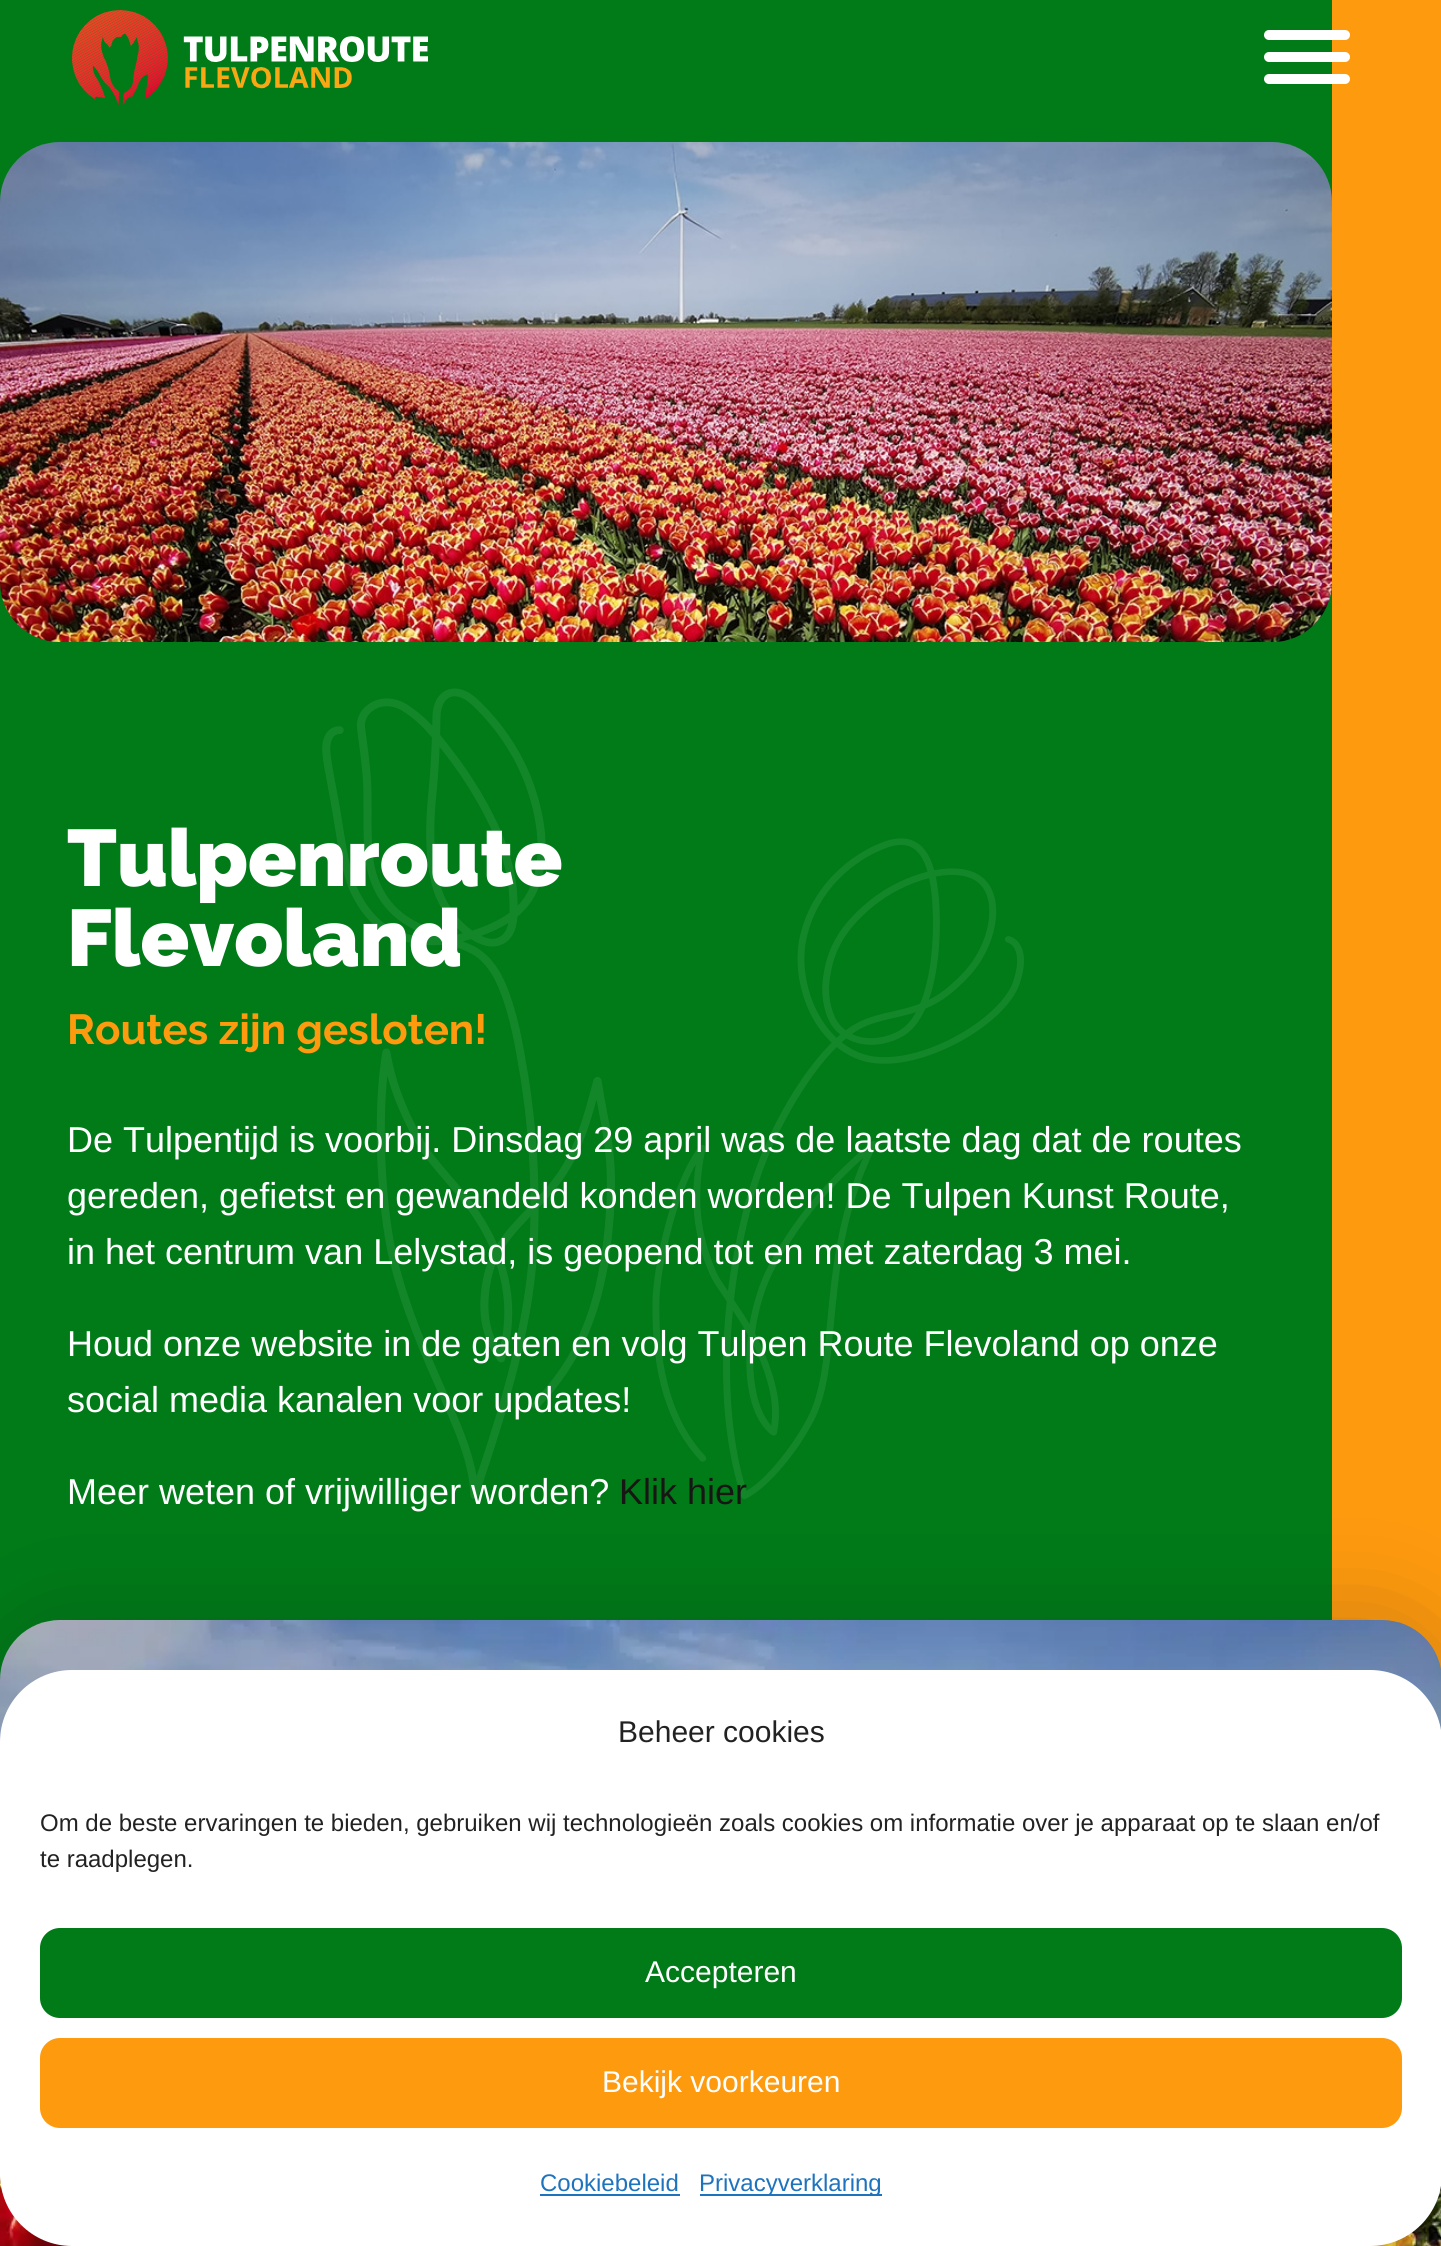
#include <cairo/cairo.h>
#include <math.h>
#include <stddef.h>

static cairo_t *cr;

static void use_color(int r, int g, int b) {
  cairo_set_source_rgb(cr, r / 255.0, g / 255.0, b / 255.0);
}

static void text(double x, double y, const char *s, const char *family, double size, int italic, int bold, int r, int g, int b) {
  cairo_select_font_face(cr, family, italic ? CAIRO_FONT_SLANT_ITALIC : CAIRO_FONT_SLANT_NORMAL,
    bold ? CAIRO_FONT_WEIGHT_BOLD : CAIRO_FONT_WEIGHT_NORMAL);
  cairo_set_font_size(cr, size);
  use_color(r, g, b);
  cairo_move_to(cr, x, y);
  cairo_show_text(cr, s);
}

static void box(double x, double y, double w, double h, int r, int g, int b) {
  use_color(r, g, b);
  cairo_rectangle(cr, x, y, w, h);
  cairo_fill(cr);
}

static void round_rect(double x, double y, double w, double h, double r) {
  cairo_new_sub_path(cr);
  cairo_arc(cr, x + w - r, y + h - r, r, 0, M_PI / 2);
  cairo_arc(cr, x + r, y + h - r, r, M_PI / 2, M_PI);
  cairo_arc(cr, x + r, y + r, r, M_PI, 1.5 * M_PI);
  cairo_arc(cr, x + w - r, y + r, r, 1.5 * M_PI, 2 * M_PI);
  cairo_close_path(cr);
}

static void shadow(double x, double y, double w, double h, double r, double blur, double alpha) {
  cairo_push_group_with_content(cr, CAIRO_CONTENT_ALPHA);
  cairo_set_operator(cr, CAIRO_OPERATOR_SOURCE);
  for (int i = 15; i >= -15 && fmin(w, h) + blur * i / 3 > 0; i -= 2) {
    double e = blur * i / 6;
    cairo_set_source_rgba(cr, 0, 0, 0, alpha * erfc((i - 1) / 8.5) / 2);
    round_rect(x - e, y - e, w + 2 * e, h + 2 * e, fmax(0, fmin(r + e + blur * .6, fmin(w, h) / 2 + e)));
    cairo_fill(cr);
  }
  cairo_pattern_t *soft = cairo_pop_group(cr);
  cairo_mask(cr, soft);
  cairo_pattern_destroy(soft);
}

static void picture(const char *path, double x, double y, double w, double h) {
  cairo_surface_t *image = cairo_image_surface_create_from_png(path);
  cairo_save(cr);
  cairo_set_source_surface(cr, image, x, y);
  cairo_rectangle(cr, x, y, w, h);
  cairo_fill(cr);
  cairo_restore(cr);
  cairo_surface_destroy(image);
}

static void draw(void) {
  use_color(255, 255, 255);
  cairo_paint(cr);
  use_color(0, 123, 24);
  cairo_new_path(cr);
  cairo_move_to(cr, 0, -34);
  cairo_line_to(cr, 1332, -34);
  cairo_line_to(cr, 1332, 1770);
  cairo_line_to(cr, 80, 1770);
  cairo_curve_to(cr, 36, 1770, 0, 1734, 0, 1690);
  cairo_close_path(cr);
  cairo_fill(cr);
  picture("img_01.png", 72, 10, 356, 96);
  box(1332, 0, 109, 1670, 254, 154, 14);
  use_color(255, 255, 255);
  round_rect(1264, 30, 86, 10, 5);
  cairo_fill(cr);
  round_rect(1264, 52, 86, 10, 5);
  cairo_fill(cr);
  round_rect(1264, 74, 86, 10, 5);
  cairo_fill(cr);
  picture("img_02.png", 322, 688, 702, 811);
  picture("img_03.png", 0, 142, 1332, 500);
  use_color(23, 22, 20);
  shadow(0, 1626, 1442, 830, 60, 50, 0.25);
  picture("img_04.png", 0, 1620, 1441, 626);
  use_color(255, 255, 255);
  round_rect(0, 1670, 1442, 576, 72);
  cairo_fill(cr);
  use_color(0, 123, 24);
  round_rect(41, 1929, 1360, 88, 19);
  cairo_fill_preserve(cr);
  cairo_stroke(cr);
  use_color(254, 154, 14);
  round_rect(41, 2039, 1360, 88, 19);
  cairo_fill_preserve(cr);
  cairo_stroke(cr);
  box(540, 2194, 140, 2, 30, 115, 190);
  box(700, 2194, 182, 2, 30, 115, 190);
  text(67, 886, "Tulpenroute", "Raleway Black", 80, 0, 0, 255, 255, 255);
  text(67, 966, "Flevoland", "Raleway Black", 80, 0, 0, 255, 255, 255);
  text(67, 1044, "Routes zijn gesloten!", "Raleway", 42, 0, 1, 254, 154, 14);
  text(67, 1152, "De Tulpentijd is voorbij. Dinsdag 29 april was de laatste dag dat de routes", "Liberation Sans", 36, 0, 0, 255, 255, 255);
  text(67, 1208, "gereden, gefietst en gewandeld konden worden! De Tulpen Kunst Route,", "Liberation Sans", 36, 0, 0, 255, 255, 255);
  text(67, 1264, "in het centrum van Lelystad, is geopend tot en met zaterdag 3 mei.", "Liberation Sans", 36, 0, 0, 255, 255, 255);
  text(67, 1356, "Houd onze website in de gaten en volg Tulpen Route Flevoland op onze", "Liberation Sans", 36, 0, 0, 255, 255, 255);
  text(67, 1412, "social media kanalen voor updates!", "Liberation Sans", 36, 0, 0, 255, 255, 255);
  text(67, 1504, "Meer weten of vrijwilliger worden?", "Liberation Sans", 36, 0, 0, 255, 255, 255);
  text(619, 1504, "Klik hier", "Liberation Sans", 36, 0, 0, 23, 22, 20);
  text(618, 1742, "Beheer cookies", "Liberation Sans", 30, 0, 0, 34, 34, 34);
  text(40, 1831, "Om de beste ervaringen te bieden, gebruiken wij technologieën zoals cookies om informatie over je apparaat op te slaan en/of", "Liberation Sans", 24, 0, 0, 34, 34, 34);
  text(40, 1867, "te raadplegen.", "Liberation Sans", 24, 0, 0, 34, 34, 34);
  text(645, 1982, "Accepteren", "Liberation Sans", 30, 0, 0, 255, 255, 255);
  text(602, 2092, "Bekijk voorkeuren", "Liberation Sans", 30, 0, 0, 255, 255, 255);
  text(540, 2191, "Cookiebeleid", "Liberation Sans", 24, 0, 0, 30, 115, 190);
  text(699, 2191, "Privacyverklaring", "Liberation Sans", 24, 0, 0, 30, 115, 190);
}

int main(void) {
  cairo_surface_t *surface = cairo_image_surface_create(CAIRO_FORMAT_RGB24, 1441, 2246);
  cr = cairo_create(surface);
  cairo_font_options_t *options = cairo_font_options_create();
  cairo_font_options_set_hint_metrics(options, CAIRO_HINT_METRICS_OFF);
  cairo_font_options_set_hint_style(options, CAIRO_HINT_STYLE_NONE);
  cairo_set_font_options(cr, options);
  cairo_set_miter_limit(cr, 4);
  draw();
  cairo_surface_write_to_png(surface, "out.png");
  cairo_font_options_destroy(options);
  cairo_destroy(cr);
  cairo_surface_destroy(surface);
  return 0;
}
